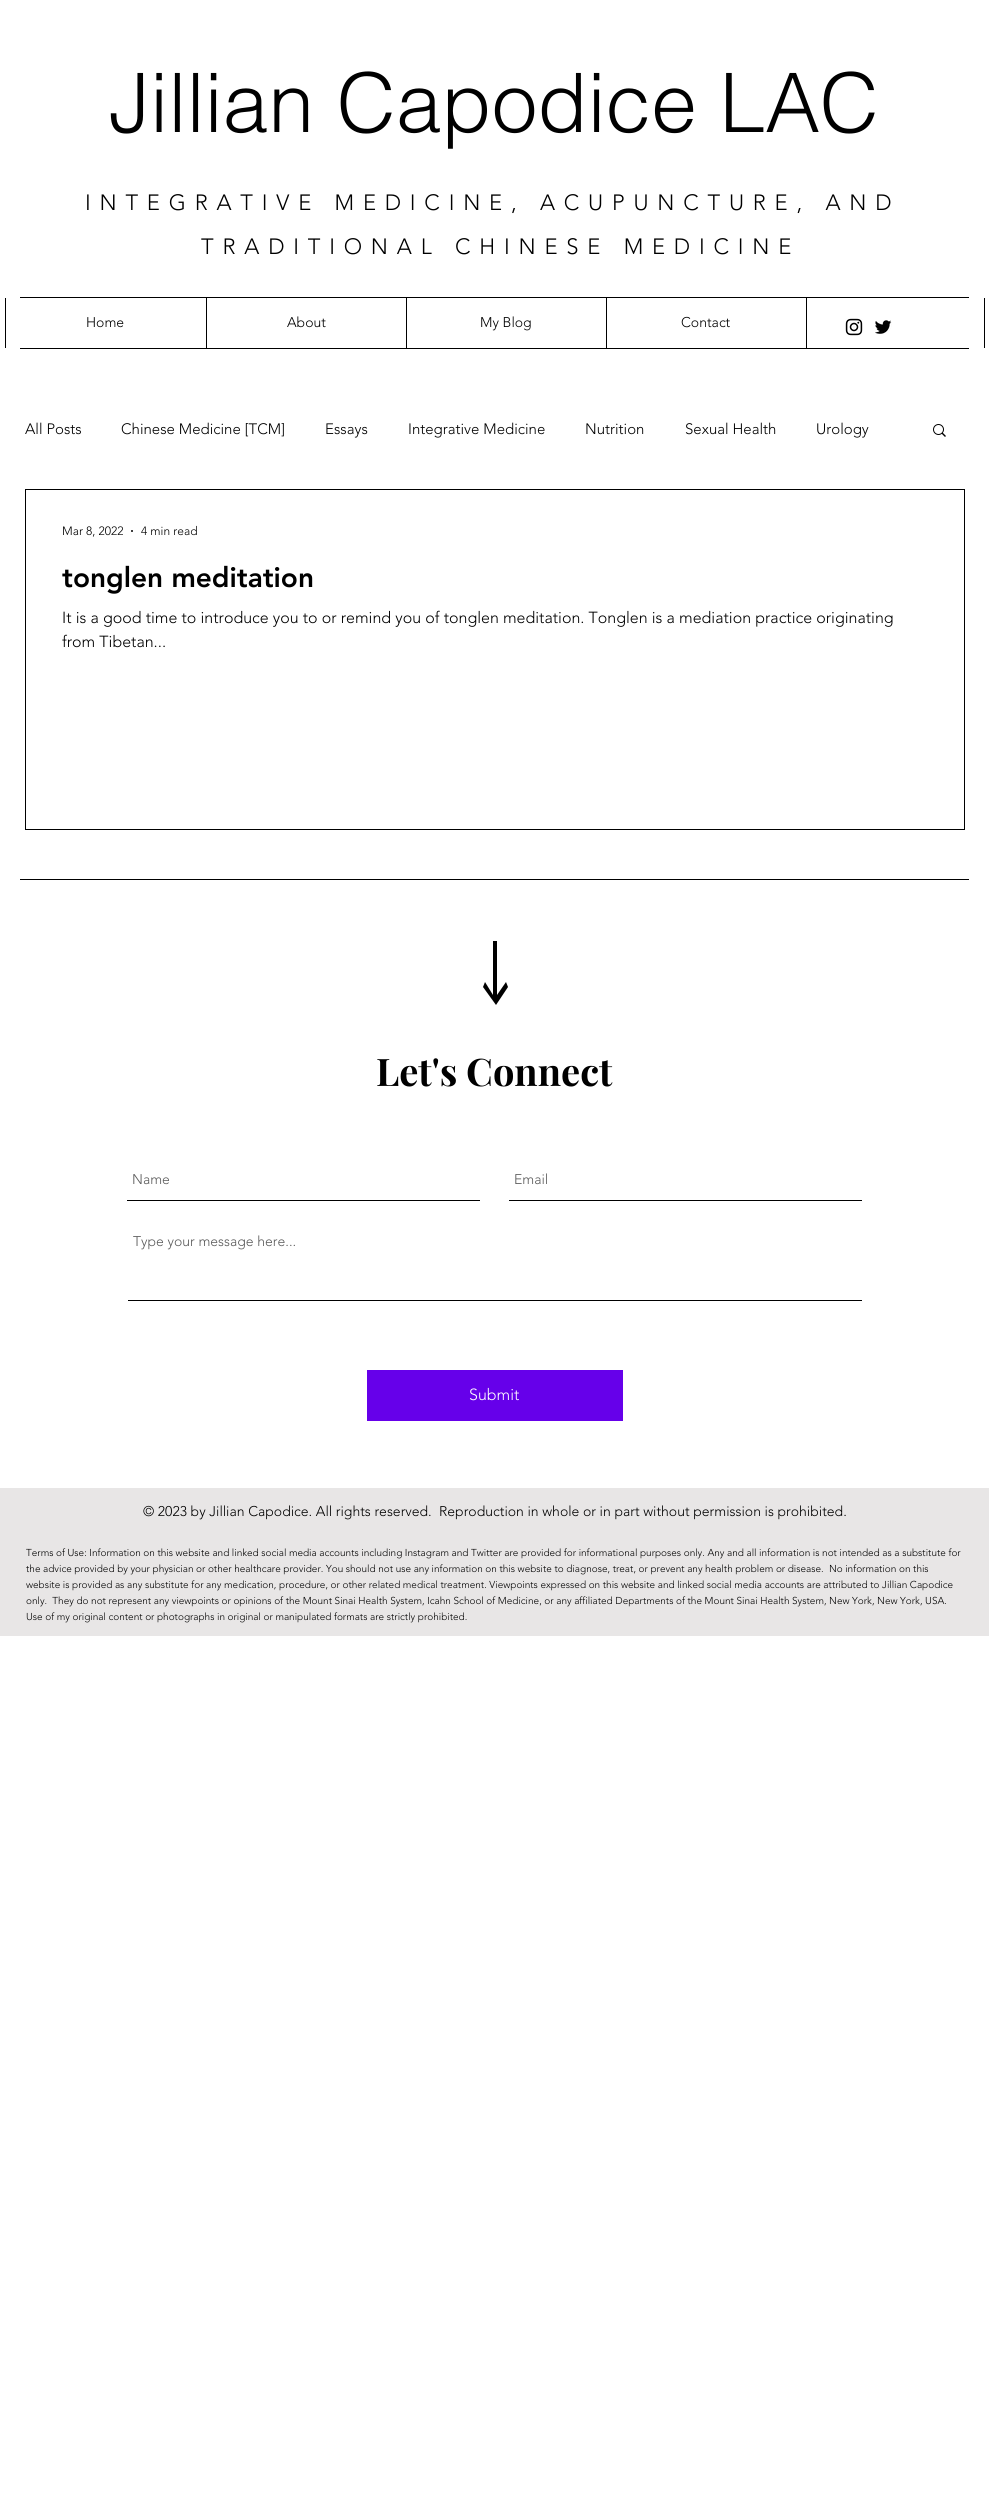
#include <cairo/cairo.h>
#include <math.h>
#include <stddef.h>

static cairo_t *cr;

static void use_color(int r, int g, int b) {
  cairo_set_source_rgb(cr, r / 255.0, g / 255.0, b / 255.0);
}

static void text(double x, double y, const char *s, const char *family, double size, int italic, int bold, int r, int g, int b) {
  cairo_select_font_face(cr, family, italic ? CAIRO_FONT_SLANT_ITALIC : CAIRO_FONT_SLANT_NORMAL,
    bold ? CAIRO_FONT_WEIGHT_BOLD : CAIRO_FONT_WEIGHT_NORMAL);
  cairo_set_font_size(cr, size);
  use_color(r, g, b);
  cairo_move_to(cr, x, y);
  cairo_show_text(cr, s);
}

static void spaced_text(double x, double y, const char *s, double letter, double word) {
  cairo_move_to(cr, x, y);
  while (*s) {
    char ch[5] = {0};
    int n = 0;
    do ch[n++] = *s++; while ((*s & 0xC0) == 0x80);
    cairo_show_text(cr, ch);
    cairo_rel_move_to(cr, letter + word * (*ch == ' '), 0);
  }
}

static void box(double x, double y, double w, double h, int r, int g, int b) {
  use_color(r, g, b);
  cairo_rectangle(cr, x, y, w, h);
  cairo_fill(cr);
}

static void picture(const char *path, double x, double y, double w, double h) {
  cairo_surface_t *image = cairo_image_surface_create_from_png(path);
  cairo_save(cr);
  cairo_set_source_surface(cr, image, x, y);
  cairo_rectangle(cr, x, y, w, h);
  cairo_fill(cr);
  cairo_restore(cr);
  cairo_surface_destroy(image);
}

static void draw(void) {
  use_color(255, 255, 255);
  cairo_paint(cr);
  box(20, 297, 949, 1, 0, 0, 0);
  box(5, 298, 1, 50, 0, 0, 0);
  box(206, 298, 1, 50, 0, 0, 0);
  box(406, 298, 1, 50, 0, 0, 0);
  box(606, 298, 1, 50, 0, 0, 0);
  box(806, 298, 1, 50, 0, 0, 0);
  picture("img_01.png", 845, 318, 18, 18);
  picture("img_02.png", 875, 320, 17, 14);
  box(984, 298, 1, 50, 0, 0, 0);
  box(20, 348, 949, 1, 0, 0, 0);
  picture("img_03.png", 933, 424, 13, 13);
  cairo_rectangle(cr, 25.5, 489.5, 939, 340);
  cairo_set_line_width(cr, 1);
  cairo_stroke(cr);
  cairo_arc(cr, 132, 531, 1, 0, 2 * M_PI);
  cairo_fill(cr);
  box(20, 879, 949, 1, 0, 0, 0);
  cairo_new_path(cr);
  cairo_move_to(cr, 506, 982);
  cairo_line_to(cr, 497, 995);
  cairo_line_to(cr, 497, 941);
  cairo_line_to(cr, 493, 941);
  cairo_line_to(cr, 493, 995);
  cairo_line_to(cr, 485, 982);
  cairo_line_to(cr, 483, 987);
  cairo_line_to(cr, 496, 1005);
  cairo_line_to(cr, 508, 987);
  cairo_close_path(cr);
  cairo_fill(cr);
  box(127, 1200, 353, 1, 0, 0, 0);
  box(509, 1200, 353, 1, 0, 0, 0);
  box(128, 1300, 734, 1, 0, 0, 0);
  box(367, 1370, 256, 51, 102, 0, 234);
  box(0, 1488, 989, 148, 232, 230, 230);
  text(109, 132, "Jillian Capodice LAC", "helvetica Light", 82, 0, 0, 0, 0, 0);
  cairo_select_font_face(cr, "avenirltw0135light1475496 Light", CAIRO_FONT_SLANT_NORMAL, CAIRO_FONT_WEIGHT_NORMAL);
  cairo_set_font_size(cr, 22);
  spaced_text(85, 210, "INTEGRATIVE MEDICINE, ACUPUNCTURE, AND", 8.8, 0);
  spaced_text(201, 254, "TRADITIONAL CHINESE MEDICINE", 8.8, 0);
  text(86, 327, "Home", "avenirltw0135light1475496 Light", 14, 0, 0, 0, 0, 0);
  text(287, 327, "About", "avenirltw0135light1475496 Light", 14, 0, 0, 0, 0, 0);
  text(480, 327, "My Blog", "avenirltw0135light1475496 Light", 14, 0, 0, 0, 0, 0);
  text(681, 327, "Contact", "avenirltw0135light1475496 Light", 14, 0, 0, 0, 0, 0);
  text(25, 434, "All Posts", "avenirltw0135light1475496 Light", 15, 0, 0, 0, 0, 0);
  text(121, 434, "Chinese Medicine [TCM]", "avenirltw0135light1475496 Light", 15, 0, 0, 0, 0, 0);
  text(325, 434, "Essays", "avenirltw0135light1475496 Light", 15, 0, 0, 0, 0, 0);
  text(408, 434, "Integrative Medicine", "avenirltw0135light1475496 Light", 15, 0, 0, 0, 0, 0);
  text(585, 434, "Nutrition", "avenirltw0135light1475496 Light", 15, 0, 0, 0, 0, 0);
  text(685, 434, "Sexual Health", "avenirltw0135light1475496 Light", 15, 0, 0, 0, 0, 0);
  text(816, 434, "Urology", "avenirltw0135light1475496 Light", 15, 0, 0, 0, 0, 0);
  text(62, 535, "Mar 8, 2022", "avenirltw0135light1475496 Light", 12, 0, 0, 0, 0, 0);
  text(141, 535, "4 min read", "avenirltw0135light1475496 Light", 12, 0, 0, 0, 0, 0);
  cairo_save(cr);
  cairo_rectangle(cr, 62, 561, 866, 33);
  cairo_clip(cr);
  text(62, 587, "tonglen meditation", "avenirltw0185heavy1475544 Black", 28, 0, 0, 0, 0, 0);
  cairo_restore(cr);
  text(62, 623, "It is a good time to introduce you to or remind you of tonglen meditation. Tonglen is a mediation practice originating", "avenirltw0135light1475496 Light", 16, 0, 0, 0, 0, 0);
  text(62, 647, "from Tibetan...", "avenirltw0135light1475496 Light", 16, 0, 0, 0, 0, 0);
  text(376, 1086, "Let's Connect", "Playfair Display", 38, 0, 1, 0, 0, 0);
  text(132, 1184, "Name", "avenirltw0135light1475496 Light", 14, 0, 0, 89, 89, 89);
  text(514, 1184, "Email", "avenirltw0135light1475496 Light", 14, 0, 0, 89, 89, 89);
  text(133, 1246, "Type your message here...", "avenirltw0135light1475496 Light", 14, 0, 0, 89, 89, 89);
  text(469, 1400, "Submit", "avenirltw0135light1475496 Light", 16, 0, 0, 255, 255, 255);
  text(143, 1516, "© 2023 by Jillian Capodice. All rights reserved.  Reproduction in whole or in part without permission is prohibited.", "avenirltw0135light1475496 Light", 14, 0, 0, 0, 0, 0);
  text(26, 1556, "Terms of Use: Information on this website and linked social media accounts including Instagram and Twitter are provided for informational purposes only. Any and all information is not intended as a substitute for", "avenirltw0135light1475496 Light", 10, 0, 0, 0, 0, 0);
  text(26, 1572, "the advice provided by your physician or other healthcare provider. You should not use any information on this website to diagnose, treat, or prevent any health problem or disease.  No information on this", "avenirltw0135light1475496 Light", 10, 0, 0, 0, 0, 0);
  text(26, 1588, "website is provided as any substitute for any medication, procedure, or other related medical treatment. Viewpoints expressed on this website and linked social media accounts are attributed to Jillian Capodice", "avenirltw0135light1475496 Light", 10, 0, 0, 0, 0, 0);
  text(26, 1604, "only.  They do not represent any viewpoints or opinions of the Mount Sinai Health System, Icahn School of Medicine, or any affiliated Departments of the Mount Sinai Health System, New York, New York, USA.", "avenirltw0135light1475496 Light", 10, 0, 0, 0, 0, 0);
  text(26, 1620, "Use of my original content or photographs in original or manipulated formats are strictly prohibited.", "avenirltw0135light1475496 Light", 10, 0, 0, 0, 0, 0);
}

int main(void) {
  cairo_surface_t *surface = cairo_image_surface_create(CAIRO_FORMAT_RGB24, 989, 2506);
  cr = cairo_create(surface);
  cairo_font_options_t *options = cairo_font_options_create();
  cairo_font_options_set_hint_metrics(options, CAIRO_HINT_METRICS_OFF);
  cairo_font_options_set_hint_style(options, CAIRO_HINT_STYLE_NONE);
  cairo_set_font_options(cr, options);
  cairo_set_miter_limit(cr, 4);
  draw();
  cairo_surface_write_to_png(surface, "out.png");
  cairo_font_options_destroy(options);
  cairo_destroy(cr);
  cairo_surface_destroy(surface);
  return 0;
}
